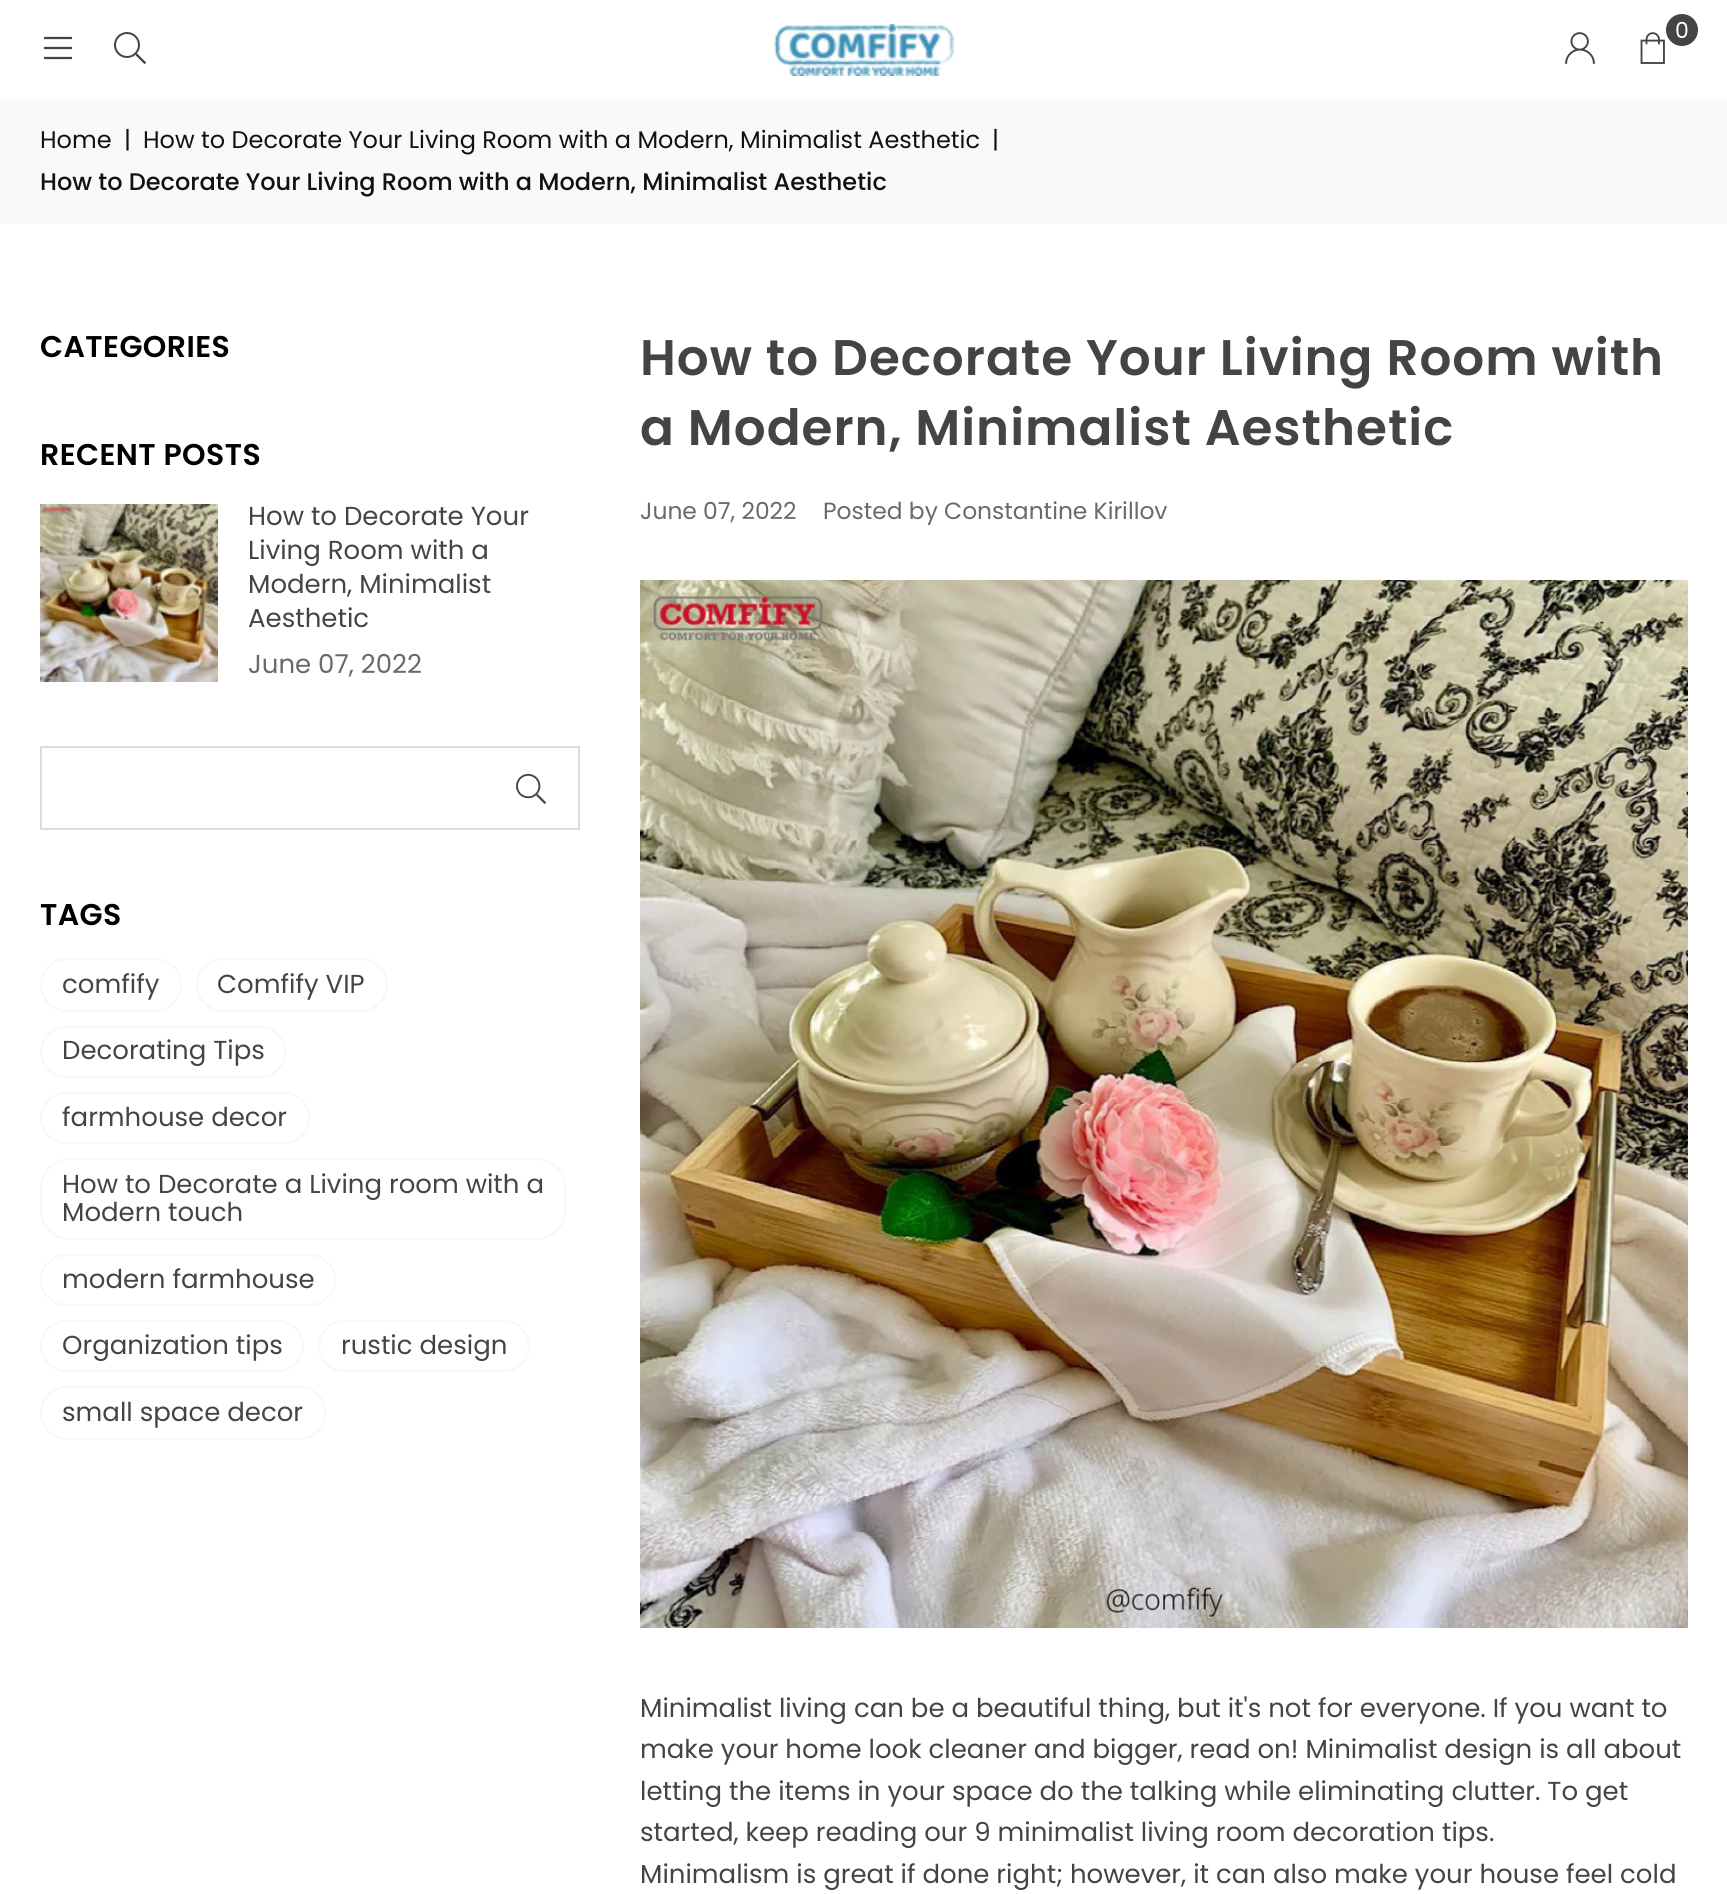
#include <cairo/cairo.h>
#include <math.h>
#include <stddef.h>

static cairo_t *cr;

static void use_color(int r, int g, int b) {
  cairo_set_source_rgb(cr, r / 255.0, g / 255.0, b / 255.0);
}

static void text(double x, double y, const char *s, const char *family, double size, int italic, int bold, int r, int g, int b) {
  cairo_select_font_face(cr, family, italic ? CAIRO_FONT_SLANT_ITALIC : CAIRO_FONT_SLANT_NORMAL,
    bold ? CAIRO_FONT_WEIGHT_BOLD : CAIRO_FONT_WEIGHT_NORMAL);
  cairo_set_font_size(cr, size);
  use_color(r, g, b);
  cairo_move_to(cr, x, y);
  cairo_show_text(cr, s);
}

static void spaced_text(double x, double y, const char *s, double letter, double word) {
  cairo_move_to(cr, x, y);
  while (*s) {
    char ch[5] = {0};
    int n = 0;
    do ch[n++] = *s++; while ((*s & 0xC0) == 0x80);
    cairo_show_text(cr, ch);
    cairo_rel_move_to(cr, letter + word * (*ch == ' '), 0);
  }
}

static void box(double x, double y, double w, double h, int r, int g, int b) {
  use_color(r, g, b);
  cairo_rectangle(cr, x, y, w, h);
  cairo_fill(cr);
}

static void round_rect(double x, double y, double w, double h, double r) {
  cairo_new_sub_path(cr);
  cairo_arc(cr, x + w - r, y + h - r, r, 0, M_PI / 2);
  cairo_arc(cr, x + r, y + h - r, r, M_PI / 2, M_PI);
  cairo_arc(cr, x + r, y + r, r, M_PI, 1.5 * M_PI);
  cairo_arc(cr, x + w - r, y + r, r, 1.5 * M_PI, 2 * M_PI);
  cairo_close_path(cr);
}

static void picture(const char *path, double x, double y, double w, double h) {
  cairo_surface_t *image = cairo_image_surface_create_from_png(path);
  cairo_save(cr);
  cairo_set_source_surface(cr, image, x, y);
  cairo_rectangle(cr, x, y, w, h);
  cairo_fill(cr);
  cairo_restore(cr);
  cairo_surface_destroy(image);
}

static void draw(void) {
  use_color(255, 255, 255);
  cairo_paint(cr);
  picture("img_01.png", 44, 36, 28, 24);
  picture("img_02.png", 114, 32, 32, 32);
  picture("img_03.png", 774, 24, 180, 52);
  use_color(68, 68, 68);
  cairo_arc(cr, 1682, 30, 16, 0, 2 * M_PI);
  cairo_fill(cr);
  picture("img_04.png", 1640, 32, 25, 32);
  picture("img_05.png", 1565, 32, 30, 32);
  box(0, 100, 1727, 124, 249, 249, 249);
  picture("img_06.png", 40, 504, 178, 178);
  cairo_rectangle(cr, 41, 747, 538, 82);
  use_color(221, 221, 221);
  cairo_stroke(cr);
  picture("img_07.png", 516, 773, 30, 31);
  round_rect(41, 959, 140, 52, 26);
  use_color(247, 247, 247);
  cairo_stroke(cr);
  round_rect(197, 959, 190, 52, 26);
  cairo_stroke(cr);
  round_rect(41, 1027, 244, 50, 25);
  cairo_stroke(cr);
  round_rect(41, 1093, 268, 50, 25);
  cairo_stroke(cr);
  round_rect(41, 1159, 524, 80, 29);
  cairo_stroke(cr);
  round_rect(41, 1255, 294, 50, 25);
  cairo_stroke(cr);
  round_rect(41, 1321, 262, 50, 25);
  cairo_stroke(cr);
  round_rect(319, 1321, 210, 50, 25);
  cairo_stroke(cr);
  round_rect(41, 1387, 284, 52, 26);
  cairo_stroke(cr);
  picture("img_08.png", 640, 580, 1048, 1048);
  text(1675, 38, "0", "Poppins", 22, 0, 0, 255, 255, 255);
  text(40, 148, "Home", "Poppins", 24, 0, 0, 17, 17, 17);
  text(124, 148, "|", "Poppins", 24, 0, 0, 17, 17, 17);
  text(143, 148, "How to Decorate Your Living Room with a Modern, Minimalist Aesthetic", "Poppins", 24, 0, 0, 17, 17, 17);
  text(992, 148, "|", "Poppins", 24, 0, 0, 17, 17, 17);
  text(40, 190, "How to Decorate Your Living Room with a Modern, Minimalist Aesthetic", "Poppins Medium", 24, 0, 0, 17, 17, 17);
  cairo_select_font_face(cr, "Poppins SemiBold", CAIRO_FONT_SLANT_NORMAL, CAIRO_FONT_WEIGHT_NORMAL);
  cairo_set_font_size(cr, 30);
  use_color(0, 0, 0);
  spaced_text(40, 357, "CATEGORIES", 0.4, 0);
  spaced_text(40, 465, "RECENT POSTS", 0.4, 0);
  text(248, 525, "How to Decorate Your", "Poppins", 26, 0, 0, 68, 68, 68);
  text(248, 559, "Living Room with a", "Poppins", 26, 0, 0, 68, 68, 68);
  text(248, 593, "Modern, Minimalist", "Poppins", 26, 0, 0, 68, 68, 68);
  text(248, 627, "Aesthetic", "Poppins", 26, 0, 0, 68, 68, 68);
  text(248, 673, "June 07, 2022", "Poppins", 26, 0, 0, 105, 105, 105);
  cairo_select_font_face(cr, "Poppins SemiBold", CAIRO_FONT_SLANT_NORMAL, CAIRO_FONT_WEIGHT_NORMAL);
  cairo_set_font_size(cr, 30);
  use_color(0, 0, 0);
  spaced_text(40, 925, "TAGS", 0.4, 0);
  text(62, 993, "comfify", "Poppins", 26, 0, 0, 68, 68, 68);
  text(217, 993, "Comfify VIP", "Poppins", 26, 0, 0, 68, 68, 68);
  text(62, 1059, "Decorating Tips", "Poppins", 26, 0, 0, 68, 68, 68);
  text(62, 1126, "farmhouse decor", "Poppins", 26, 0, 0, 68, 68, 68);
  text(62, 1193, "How to Decorate a Living room with a", "Poppins", 26, 0, 0, 68, 68, 68);
  text(62, 1221, "Modern touch", "Poppins", 26, 0, 0, 68, 68, 68);
  text(62, 1288, "modern farmhouse", "Poppins", 26, 0, 0, 68, 68, 68);
  text(62, 1354, "Organization tips", "Poppins", 26, 0, 0, 68, 68, 68);
  text(341, 1354, "rustic design", "Poppins", 26, 0, 0, 68, 68, 68);
  text(62, 1421, "small space decor", "Poppins", 26, 0, 0, 68, 68, 68);
  cairo_select_font_face(cr, "Poppins SemiBold", CAIRO_FONT_SLANT_NORMAL, CAIRO_FONT_WEIGHT_NORMAL);
  cairo_set_font_size(cr, 50);
  spaced_text(640, 375, "How to Decorate Your Living Room with", 1, 0);
  spaced_text(640, 445, "a Modern, Minimalist Aesthetic", 1, 0);
  text(640, 519, "June 07, 2022", "Poppins", 23.4, 0, 0, 105, 105, 105);
  text(823, 519, "Posted by Constantine Kirillov", "Poppins", 23.4, 0, 0, 105, 105, 105);
  text(640, 1717, "Minimalist living can be a beautiful thing, but it's not for everyone. If you want to", "Poppins", 26, 0, 0, 68, 68, 68);
  text(640, 1758, "make your home look cleaner and bigger, read on! Minimalist design is all about", "Poppins", 26, 0, 0, 68, 68, 68);
  text(640, 1800, "letting the items in your space do the talking while eliminating clutter. To get", "Poppins", 26, 0, 0, 68, 68, 68);
  text(640, 1841, "started, keep reading our 9 minimalist living room decoration tips.", "Poppins", 26, 0, 0, 68, 68, 68);
  text(640, 1883, "Minimalism is great if done right; however, it can also make your house feel cold", "Poppins", 26, 0, 0, 68, 68, 68);
}

int main(void) {
  cairo_surface_t *surface = cairo_image_surface_create(CAIRO_FORMAT_RGB24, 1727, 1894);
  cr = cairo_create(surface);
  cairo_font_options_t *options = cairo_font_options_create();
  cairo_font_options_set_hint_metrics(options, CAIRO_HINT_METRICS_OFF);
  cairo_font_options_set_hint_style(options, CAIRO_HINT_STYLE_NONE);
  cairo_set_font_options(cr, options);
  cairo_set_miter_limit(cr, 4);
  draw();
  cairo_surface_write_to_png(surface, "out.png");
  cairo_font_options_destroy(options);
  cairo_destroy(cr);
  cairo_surface_destroy(surface);
  return 0;
}
